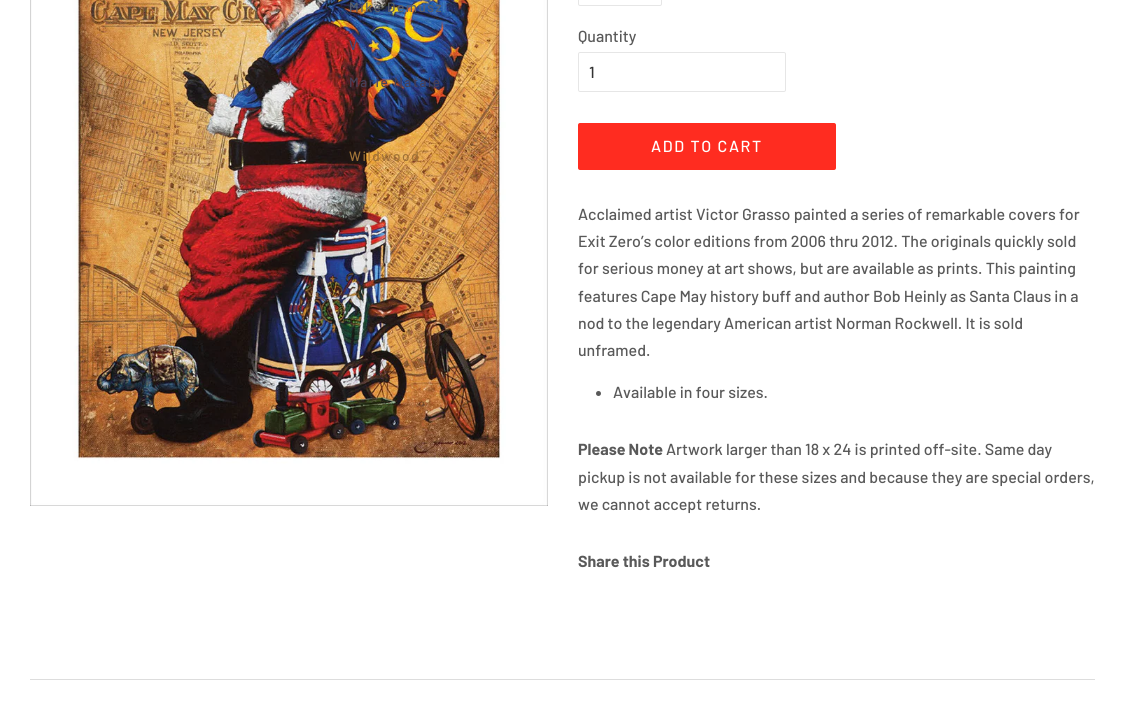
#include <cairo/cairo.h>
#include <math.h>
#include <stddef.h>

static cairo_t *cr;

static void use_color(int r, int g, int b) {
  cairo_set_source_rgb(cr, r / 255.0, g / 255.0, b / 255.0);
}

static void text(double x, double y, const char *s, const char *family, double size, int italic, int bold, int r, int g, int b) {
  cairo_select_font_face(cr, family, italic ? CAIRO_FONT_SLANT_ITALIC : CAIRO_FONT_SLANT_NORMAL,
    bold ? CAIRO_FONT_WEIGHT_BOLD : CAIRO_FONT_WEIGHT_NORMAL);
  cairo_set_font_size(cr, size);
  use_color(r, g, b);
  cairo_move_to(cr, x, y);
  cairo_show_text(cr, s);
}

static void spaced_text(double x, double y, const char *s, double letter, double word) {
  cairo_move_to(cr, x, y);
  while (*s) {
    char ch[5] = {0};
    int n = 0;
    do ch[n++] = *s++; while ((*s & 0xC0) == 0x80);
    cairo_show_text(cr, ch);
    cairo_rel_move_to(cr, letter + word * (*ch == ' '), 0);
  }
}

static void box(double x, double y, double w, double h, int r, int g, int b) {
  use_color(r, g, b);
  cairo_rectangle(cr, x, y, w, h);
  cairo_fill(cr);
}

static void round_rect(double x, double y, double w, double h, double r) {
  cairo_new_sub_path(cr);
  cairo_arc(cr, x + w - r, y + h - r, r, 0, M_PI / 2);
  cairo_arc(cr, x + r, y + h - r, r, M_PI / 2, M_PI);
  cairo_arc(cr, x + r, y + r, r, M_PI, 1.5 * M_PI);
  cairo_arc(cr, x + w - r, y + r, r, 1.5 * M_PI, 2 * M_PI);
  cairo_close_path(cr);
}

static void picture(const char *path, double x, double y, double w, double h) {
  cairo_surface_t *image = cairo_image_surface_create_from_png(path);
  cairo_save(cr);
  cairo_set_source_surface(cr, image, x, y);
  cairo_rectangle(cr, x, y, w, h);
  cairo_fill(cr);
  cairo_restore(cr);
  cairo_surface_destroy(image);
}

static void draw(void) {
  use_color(255, 255, 255);
  cairo_paint(cr);
  picture("img_01.png", 30, 0, 518, 506);
  round_rect(578.5, -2.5, 83, 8, 1.5);
  use_color(230, 230, 230);
  cairo_set_line_width(cr, 1);
  cairo_stroke(cr);
  round_rect(578.5, 52.5, 207, 39, 1.5);
  cairo_stroke(cr);
  use_color(255, 44, 32);
  round_rect(578, 123, 258, 47, 2);
  cairo_fill(cr);
  use_color(89, 89, 89);
  cairo_arc(cr, 598.5, 393.5, 2.5, 0, 2 * M_PI);
  cairo_fill(cr);
  box(30, 679, 1065, 1, 221, 221, 221);
  cairo_select_font_face(cr, "Barlow Medium", CAIRO_FONT_SLANT_NORMAL, CAIRO_FONT_WEIGHT_NORMAL);
  cairo_set_font_size(cr, 13.5);
  use_color(89, 96, 107);
  spaced_text(349, 12, "Mike Demusz", 1.6, 0);
  use_color(65, 76, 119);
  spaced_text(349, 50, "V", 1.6, 0);
  use_color(70, 64, 88);
  spaced_text(349, 87, "Marie Natale", 1.6, 0);
  use_color(160, 114, 55);
  spaced_text(349, 161, "Wildwood", 1.6, 0);
  text(578, 42, "Quantity", "Barlow Medium", 16, 0, 0, 89, 89, 89);
  text(589, 78, "1", "Barlow Medium", 16, 0, 0, 51, 51, 51);
  use_color(255, 255, 255);
  spaced_text(651, 152, "ADD TO CART", 1.6, 0);
  text(578, 220, "Acclaimed artist Victor Grasso painted a series of remarkable covers for", "Barlow Medium", 16, 0, 0, 89, 89, 89);
  text(578, 247, "Exit Zero’s color editions from 2006 thru 2012. The originals quickly sold", "Barlow Medium", 16, 0, 0, 89, 89, 89);
  text(578, 274, "for serious money at art shows, but are available as prints. This painting", "Barlow Medium", 16, 0, 0, 89, 89, 89);
  text(578, 302, "features Cape May history buff and author Bob Heinly as Santa Claus in a", "Barlow Medium", 16, 0, 0, 89, 89, 89);
  text(578, 329, "nod to the legendary American artist Norman Rockwell. It is sold", "Barlow Medium", 16, 0, 0, 89, 89, 89);
  text(578, 356, "unframed.", "Barlow Medium", 16, 0, 0, 89, 89, 89);
  text(613, 398, "Available in four sizes.", "Barlow Medium", 16, 0, 0, 89, 89, 89);
  text(578, 455, "Please Note", "Barlow", 16, 0, 1, 89, 89, 89);
  text(666, 455, "Artwork larger than 18 x 24 is printed off-site. Same day", "Barlow Medium", 16, 0, 0, 89, 89, 89);
  text(578, 483, "pickup is not available for these sizes and because they are special orders,", "Barlow Medium", 16, 0, 0, 89, 89, 89);
  text(578, 510, "we cannot accept returns.", "Barlow Medium", 16, 0, 0, 89, 89, 89);
  text(578, 567, "Share this Product", "Barlow", 16, 0, 1, 89, 89, 89);
}

int main(void) {
  cairo_surface_t *surface = cairo_image_surface_create(CAIRO_FORMAT_RGB24, 1125, 702);
  cr = cairo_create(surface);
  cairo_font_options_t *options = cairo_font_options_create();
  cairo_font_options_set_hint_metrics(options, CAIRO_HINT_METRICS_OFF);
  cairo_font_options_set_hint_style(options, CAIRO_HINT_STYLE_NONE);
  cairo_set_font_options(cr, options);
  cairo_set_miter_limit(cr, 4);
  draw();
  cairo_surface_write_to_png(surface, "out.png");
  cairo_font_options_destroy(options);
  cairo_destroy(cr);
  cairo_surface_destroy(surface);
  return 0;
}
